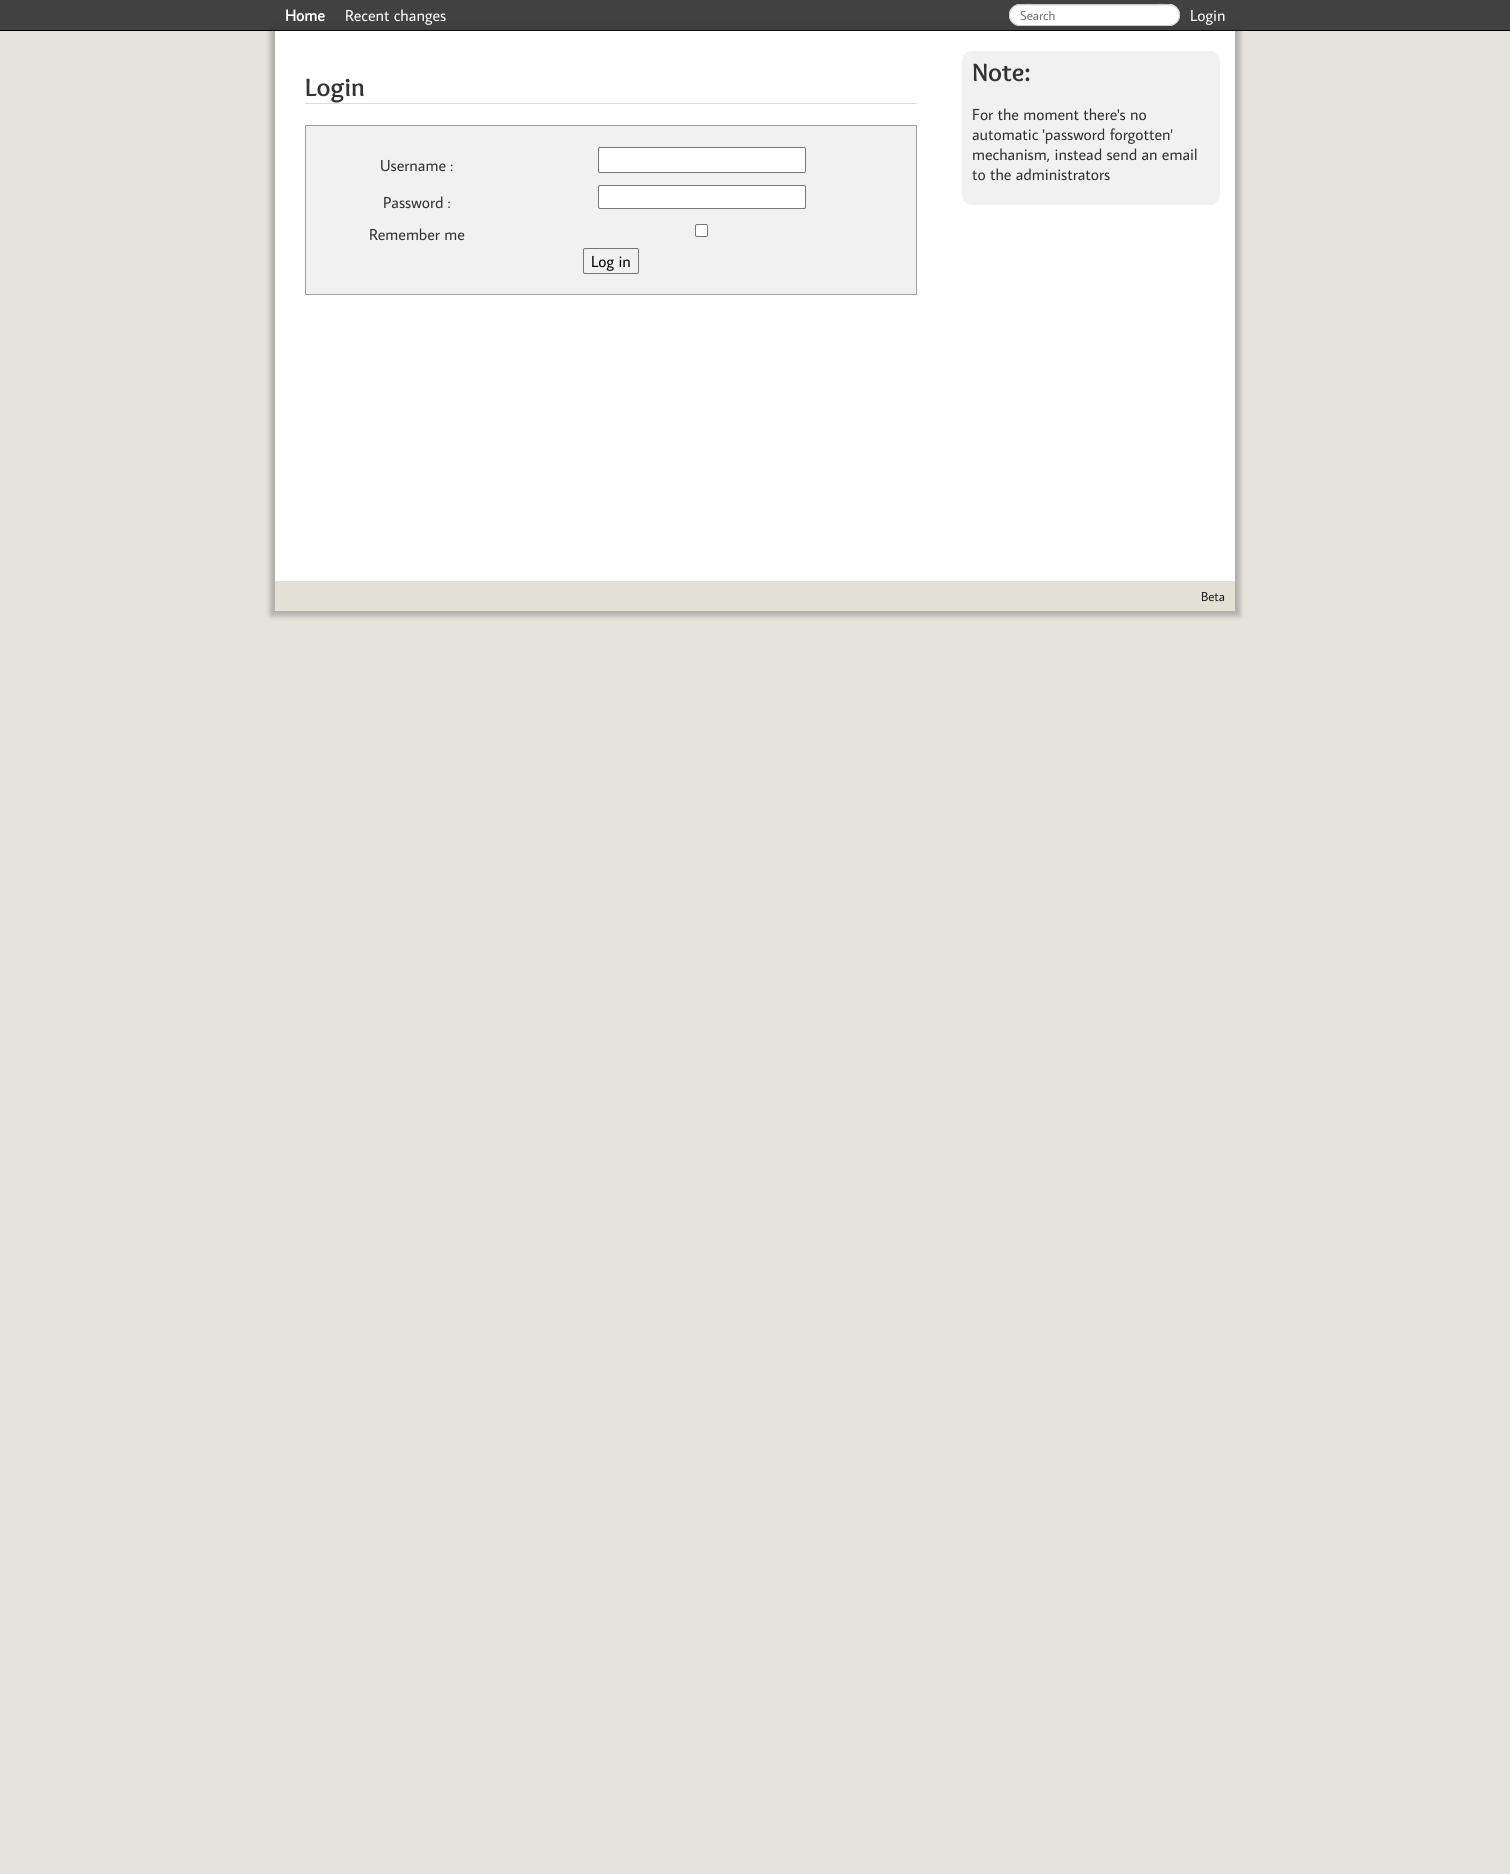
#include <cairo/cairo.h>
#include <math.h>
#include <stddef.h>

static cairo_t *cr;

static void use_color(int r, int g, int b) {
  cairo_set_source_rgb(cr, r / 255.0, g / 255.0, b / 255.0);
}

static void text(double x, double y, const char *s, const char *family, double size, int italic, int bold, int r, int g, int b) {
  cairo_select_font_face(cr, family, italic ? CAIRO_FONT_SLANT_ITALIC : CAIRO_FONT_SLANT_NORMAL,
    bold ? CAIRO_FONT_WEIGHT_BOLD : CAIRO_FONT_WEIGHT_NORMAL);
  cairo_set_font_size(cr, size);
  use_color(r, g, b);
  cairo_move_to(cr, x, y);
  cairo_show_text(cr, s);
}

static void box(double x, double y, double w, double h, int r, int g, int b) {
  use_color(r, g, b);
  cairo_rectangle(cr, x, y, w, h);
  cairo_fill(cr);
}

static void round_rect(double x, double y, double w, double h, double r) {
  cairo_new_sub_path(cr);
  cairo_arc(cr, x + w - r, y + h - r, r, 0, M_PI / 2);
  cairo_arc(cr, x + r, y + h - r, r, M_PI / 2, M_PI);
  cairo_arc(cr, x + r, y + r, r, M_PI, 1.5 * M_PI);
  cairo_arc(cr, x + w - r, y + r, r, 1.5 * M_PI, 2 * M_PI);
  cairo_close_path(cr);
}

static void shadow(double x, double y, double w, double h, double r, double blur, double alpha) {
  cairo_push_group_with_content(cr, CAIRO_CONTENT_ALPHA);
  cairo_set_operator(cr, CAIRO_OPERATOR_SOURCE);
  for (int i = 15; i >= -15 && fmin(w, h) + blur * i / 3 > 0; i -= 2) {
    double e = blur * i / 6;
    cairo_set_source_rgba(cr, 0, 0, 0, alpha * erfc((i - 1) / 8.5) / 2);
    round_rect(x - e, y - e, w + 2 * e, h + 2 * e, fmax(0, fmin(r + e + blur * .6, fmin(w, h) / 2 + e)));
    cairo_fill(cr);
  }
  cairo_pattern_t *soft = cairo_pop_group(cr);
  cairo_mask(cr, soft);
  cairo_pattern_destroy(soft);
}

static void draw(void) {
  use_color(229, 227, 218);
  cairo_paint(cr);
  box(0, 0, 1510, 30, 65, 65, 65);
  box(0, 30, 1510, 1, 0, 0, 0);
  use_color(50, 50, 50);
  shadow(270, 26, 970, 590, 0, 2.5, 0.3);
  use_color(255, 255, 255);
  round_rect(1009, 4, 171, 22, 11);
  cairo_fill(cr);
  use_color(236, 236, 236);
  cairo_new_path(cr);
  cairo_move_to(cr, 1020, 6);
  cairo_line_to(cr, 1169, 6);
  cairo_curve_to(cr, 1175, 6, 1179, 10, 1179, 15);
  cairo_curve_to(cr, 1180, -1, 1150, 5, 1144, 5);
  cairo_line_to(cr, 1045, 5);
  cairo_curve_to(cr, 1039, 5, 1009, -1, 1010, 15);
  cairo_curve_to(cr, 1010, 10, 1014, 6, 1020, 6);
  cairo_close_path(cr);
  cairo_fill(cr);
  round_rect(1009.5, 4.5, 170, 21, 10.5);
  use_color(204, 204, 204);
  cairo_set_line_width(cr, 1);
  cairo_stroke(cr);
  box(275, 31, 960, 550, 255, 255, 255);
  box(305, 103, 612, 1, 221, 221, 221);
  use_color(241, 241, 241);
  cairo_rectangle(cr, 305.5, 125.5, 611, 169);
  cairo_fill_preserve(cr);
  use_color(161, 161, 161);
  cairo_stroke(cr);
  use_color(255, 255, 255);
  round_rect(598.5, 147.5, 207, 25, 1.5);
  cairo_fill_preserve(cr);
  use_color(118, 118, 118);
  cairo_stroke(cr);
  use_color(255, 255, 255);
  round_rect(598.5, 185.5, 207, 23, 1.5);
  cairo_fill_preserve(cr);
  use_color(118, 118, 118);
  cairo_stroke(cr);
  use_color(255, 255, 255);
  round_rect(695.5, 224.5, 12, 12, 1.5);
  cairo_fill_preserve(cr);
  use_color(118, 118, 118);
  cairo_stroke(cr);
  round_rect(583.5, 248.5, 55, 25, 1.5);
  cairo_stroke(cr);
  use_color(241, 241, 241);
  round_rect(962, 51, 258, 154, 10);
  cairo_fill(cr);
  box(275, 581, 960, 30, 227, 224, 214);
  text(285, 21, "Home", "Average Sans", 16, 0, 1, 255, 255, 255);
  text(345, 21, "Recent changes", "Average Sans", 16, 0, 0, 255, 255, 255);
  text(1020, 20, "Search", "Average Sans", 13, 0, 0, 117, 117, 117);
  text(1190, 21, "Login", "Average Sans", 16, 0, 0, 255, 255, 255);
  text(305, 96, "Login", "Overlock", 26, 0, 1, 51, 51, 51);
  text(380, 171, "Username :", "Average Sans", 16, 0, 0, 51, 51, 51);
  text(383, 208, "Password :", "Average Sans", 16, 0, 0, 51, 51, 51);
  text(369, 240, "Remember me", "Average Sans", 16, 0, 0, 51, 51, 51);
  text(591, 267, "Log in", "Average Sans", 16, 0, 0, 0, 0, 0);
  text(972, 81, "Note:", "Overlock", 26, 0, 1, 51, 51, 51);
  text(972, 120, "For the moment there's no", "Average Sans", 16, 0, 0, 51, 51, 51);
  text(972, 140, "automatic 'password forgotten'", "Average Sans", 16, 0, 0, 51, 51, 51);
  text(972, 160, "mechanism, instead send an email", "Average Sans", 16, 0, 0, 51, 51, 51);
  text(972, 180, "to the administrators", "Average Sans", 16, 0, 0, 51, 51, 51);
  text(1201, 601, "Beta", "Average Sans", 13, 0, 0, 34, 34, 34);
}

int main(void) {
  cairo_surface_t *surface = cairo_image_surface_create(CAIRO_FORMAT_RGB24, 1510, 1874);
  cr = cairo_create(surface);
  cairo_font_options_t *options = cairo_font_options_create();
  cairo_font_options_set_hint_metrics(options, CAIRO_HINT_METRICS_OFF);
  cairo_font_options_set_hint_style(options, CAIRO_HINT_STYLE_NONE);
  cairo_set_font_options(cr, options);
  cairo_set_miter_limit(cr, 4);
  draw();
  cairo_surface_write_to_png(surface, "out.png");
  cairo_font_options_destroy(options);
  cairo_destroy(cr);
  cairo_surface_destroy(surface);
  return 0;
}
